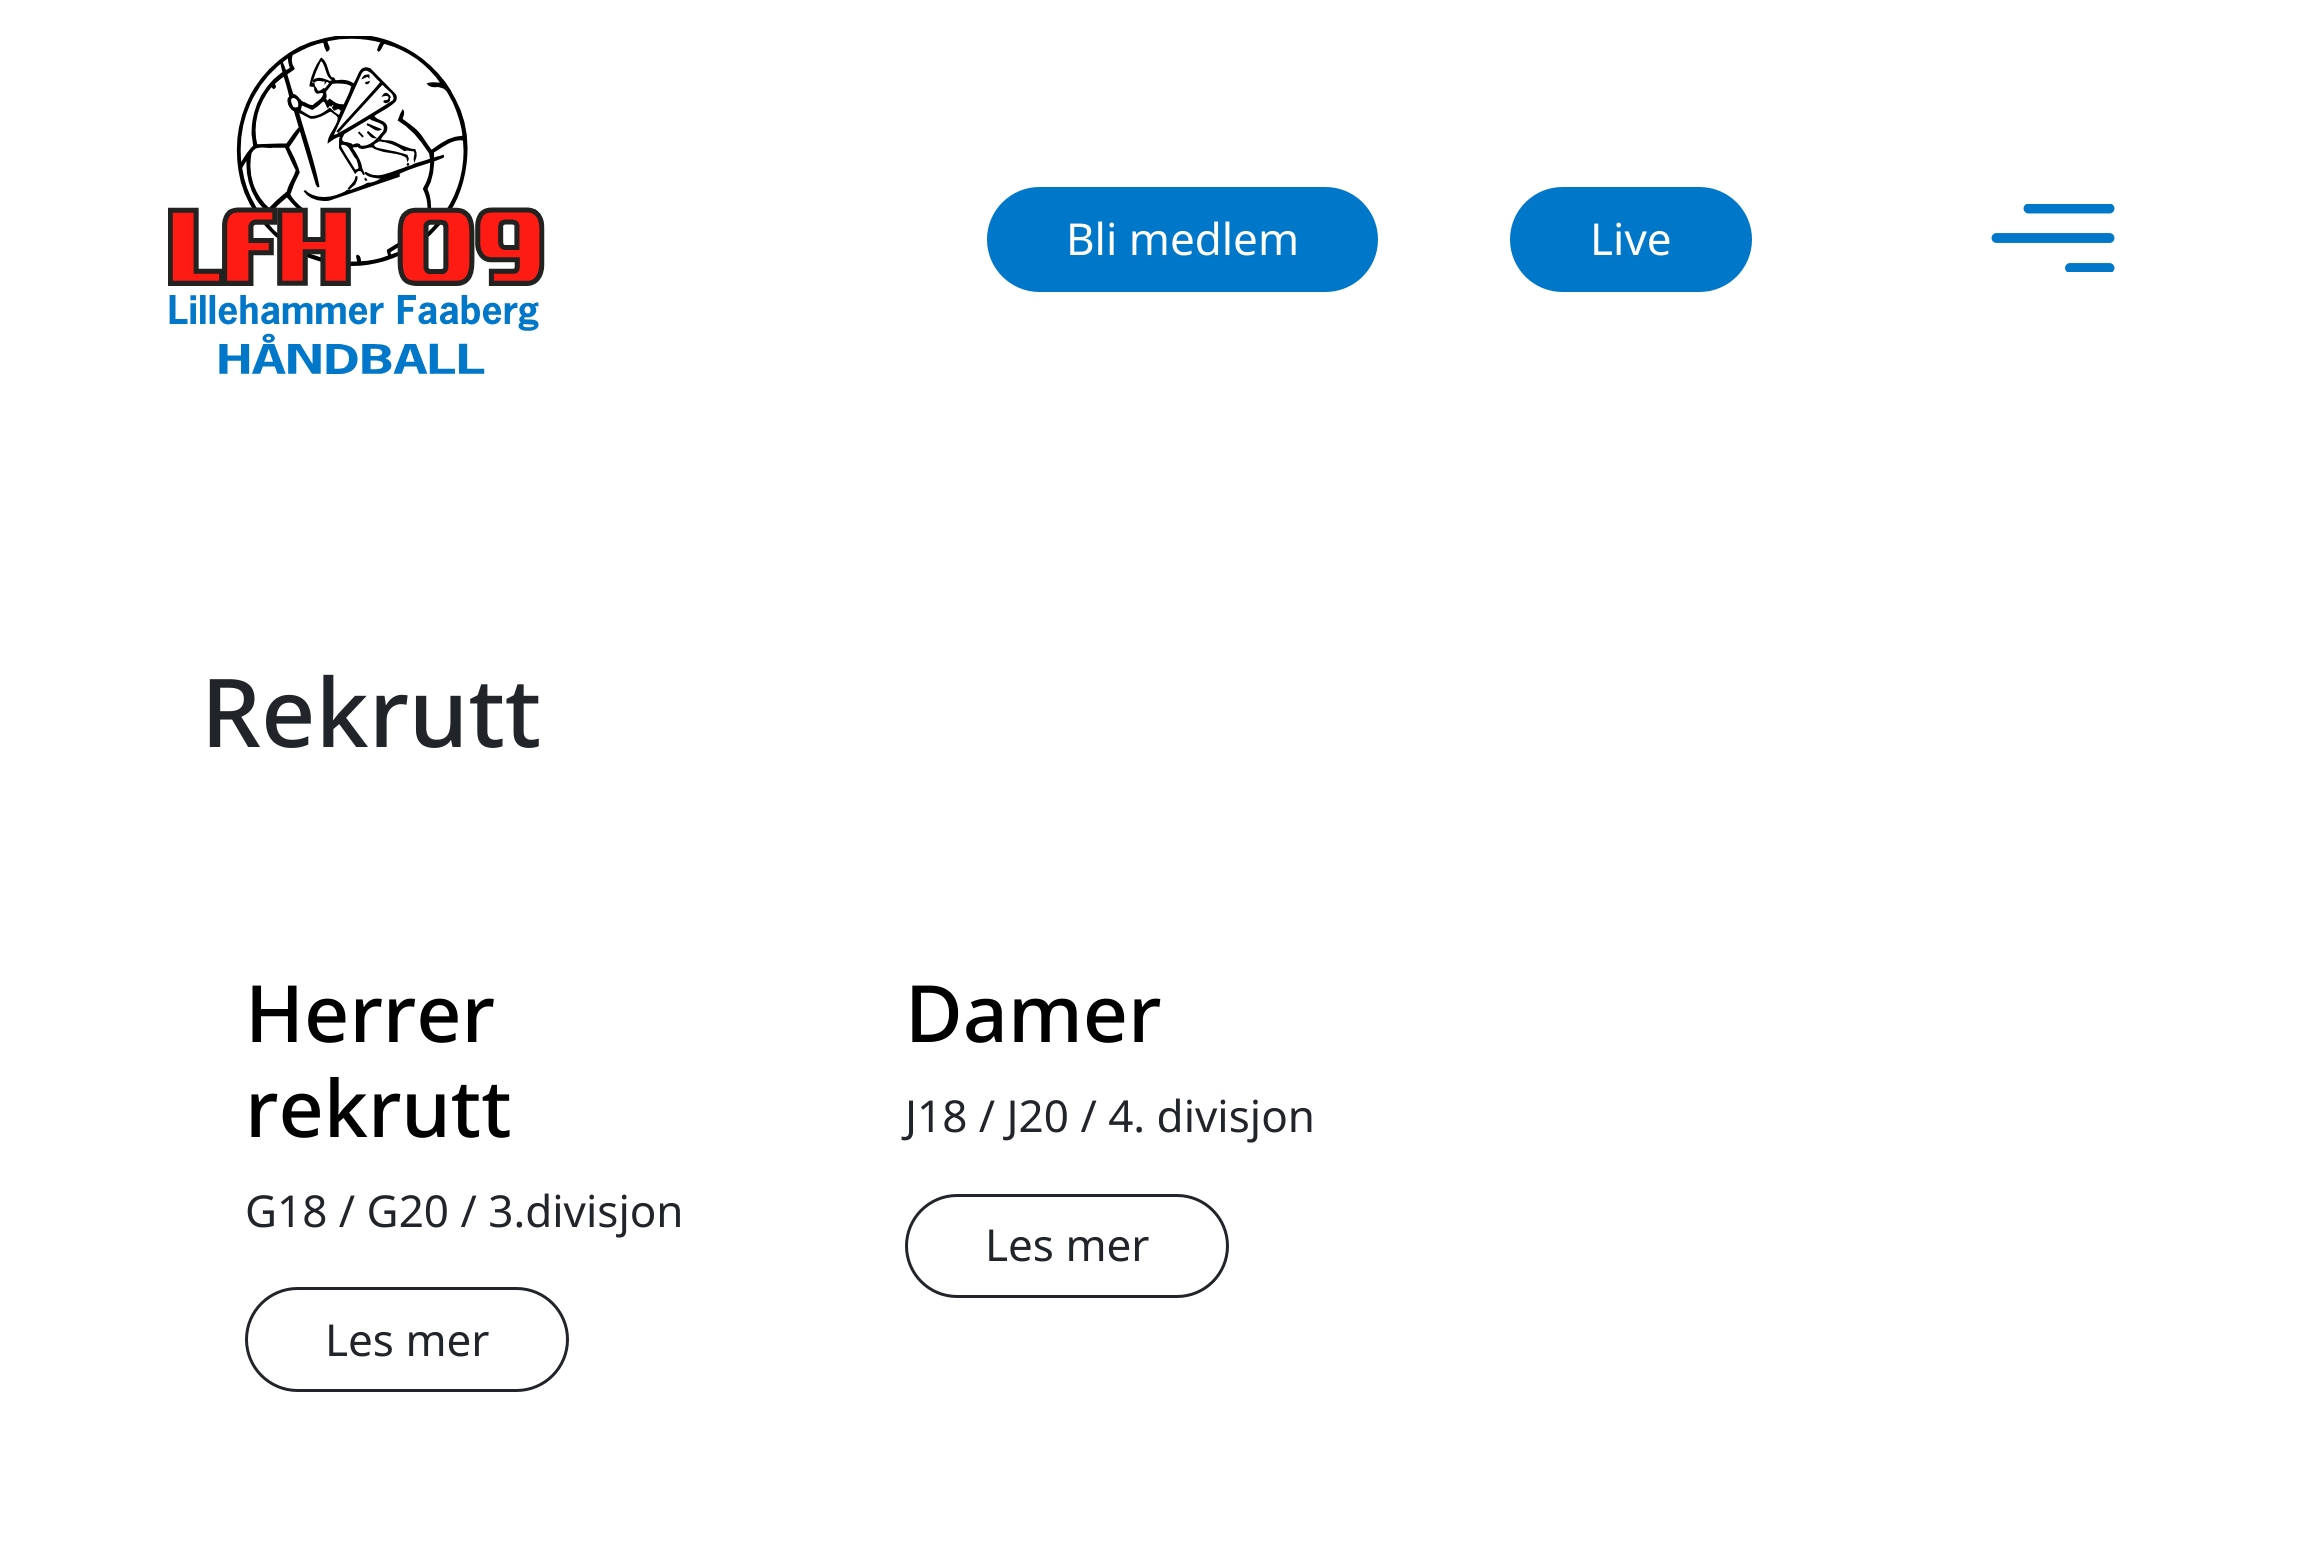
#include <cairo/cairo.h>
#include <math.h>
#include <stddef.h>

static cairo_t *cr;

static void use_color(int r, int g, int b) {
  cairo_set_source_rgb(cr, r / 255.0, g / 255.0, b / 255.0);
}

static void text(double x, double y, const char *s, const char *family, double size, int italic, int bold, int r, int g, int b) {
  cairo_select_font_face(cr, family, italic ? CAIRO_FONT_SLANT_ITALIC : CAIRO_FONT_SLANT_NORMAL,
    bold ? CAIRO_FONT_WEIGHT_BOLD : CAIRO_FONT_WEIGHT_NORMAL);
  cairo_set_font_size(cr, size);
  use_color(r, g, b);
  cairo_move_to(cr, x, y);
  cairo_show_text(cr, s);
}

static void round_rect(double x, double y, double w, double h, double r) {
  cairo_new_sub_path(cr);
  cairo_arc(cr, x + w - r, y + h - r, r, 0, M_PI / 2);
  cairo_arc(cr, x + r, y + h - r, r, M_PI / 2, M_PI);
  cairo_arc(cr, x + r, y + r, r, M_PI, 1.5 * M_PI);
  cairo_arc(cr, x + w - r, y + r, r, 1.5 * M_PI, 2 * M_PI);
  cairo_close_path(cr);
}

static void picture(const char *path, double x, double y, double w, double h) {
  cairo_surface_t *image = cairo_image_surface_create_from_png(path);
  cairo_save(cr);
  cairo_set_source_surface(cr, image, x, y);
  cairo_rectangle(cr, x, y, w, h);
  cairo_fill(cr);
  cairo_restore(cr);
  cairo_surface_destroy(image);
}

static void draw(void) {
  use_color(255, 255, 255);
  cairo_paint(cr);
  picture("img_01.png", 168, 36, 377, 338);
  use_color(0, 119, 200);
  round_rect(988.5, 188.5, 388, 102, 51);
  cairo_fill_preserve(cr);
  cairo_set_line_width(cr, 3);
  cairo_stroke(cr);
  round_rect(1511.5, 188.5, 239, 102, 51);
  cairo_fill_preserve(cr);
  cairo_stroke(cr);
  cairo_save(cr);
  cairo_rectangle(cr, 1991, 204, 124, 68);
  cairo_clip(cr);
  cairo_new_path(cr);
  cairo_move_to(cr, 2109.5, 208.5);
  cairo_line_to(cr, 2028.5, 208.5);
  cairo_set_line_width(cr, 9.9);
  cairo_set_line_cap(cr, CAIRO_LINE_CAP_ROUND);
  cairo_stroke(cr);
  cairo_restore(cr);
  cairo_new_path(cr);
  cairo_move_to(cr, 2109.5, 238);
  cairo_line_to(cr, 1996.5, 238);
  cairo_set_line_width(cr, 9.9);
  cairo_set_line_cap(cr, CAIRO_LINE_CAP_ROUND);
  cairo_stroke(cr);
  cairo_save(cr);
  cairo_rectangle(cr, 1991, 204, 124, 68);
  cairo_clip(cr);
  cairo_new_path(cr);
  cairo_move_to(cr, 2109.5, 268);
  cairo_line_to(cr, 2070, 268);
  cairo_stroke(cr);
  cairo_restore(cr);
  round_rect(246.5, 1288.5, 321, 102, 51);
  use_color(33, 37, 41);
  cairo_set_line_width(cr, 3);
  cairo_set_line_cap(cr, CAIRO_LINE_CAP_BUTT);
  cairo_stroke(cr);
  round_rect(906.5, 1195.5, 321, 101, 50.5);
  cairo_stroke(cr);
  text(1066, 255, "Bli medlem", "Noto Sans", 44, 0, 0, 255, 255, 255);
  text(1590, 255, "Live", "Noto Sans", 44, 0, 0, 255, 255, 255);
  text(201, 747, "Rekrutt", "Noto Sans Medium", 95, 0, 0, 33, 37, 41);
  text(245, 1042, "Herrer", "Noto Sans Medium", 79, 0, 0, 0, 0, 0);
  text(245, 1137, "rekrutt", "Noto Sans Medium", 79, 0, 0, 0, 0, 0);
  text(245, 1227, "G18 / G20 / 3.divisjon", "Noto Sans", 44, 0, 0, 33, 37, 41);
  text(325, 1356, "Les mer", "Noto Sans", 44, 0, 0, 33, 37, 41);
  text(905, 1042, "Damer", "Noto Sans Medium", 79, 0, 0, 0, 0, 0);
  text(905, 1132, "J18 / J20 / 4. divisjon", "Noto Sans", 44, 0, 0, 33, 37, 41);
  text(985, 1261, "Les mer", "Noto Sans", 44, 0, 0, 33, 37, 41);
}

int main(void) {
  cairo_surface_t *surface = cairo_image_surface_create(CAIRO_FORMAT_RGB24, 2313, 1565);
  cr = cairo_create(surface);
  cairo_font_options_t *options = cairo_font_options_create();
  cairo_font_options_set_hint_metrics(options, CAIRO_HINT_METRICS_OFF);
  cairo_font_options_set_hint_style(options, CAIRO_HINT_STYLE_NONE);
  cairo_set_font_options(cr, options);
  cairo_set_miter_limit(cr, 4);
  draw();
  cairo_surface_write_to_png(surface, "out.png");
  cairo_font_options_destroy(options);
  cairo_destroy(cr);
  cairo_surface_destroy(surface);
  return 0;
}
